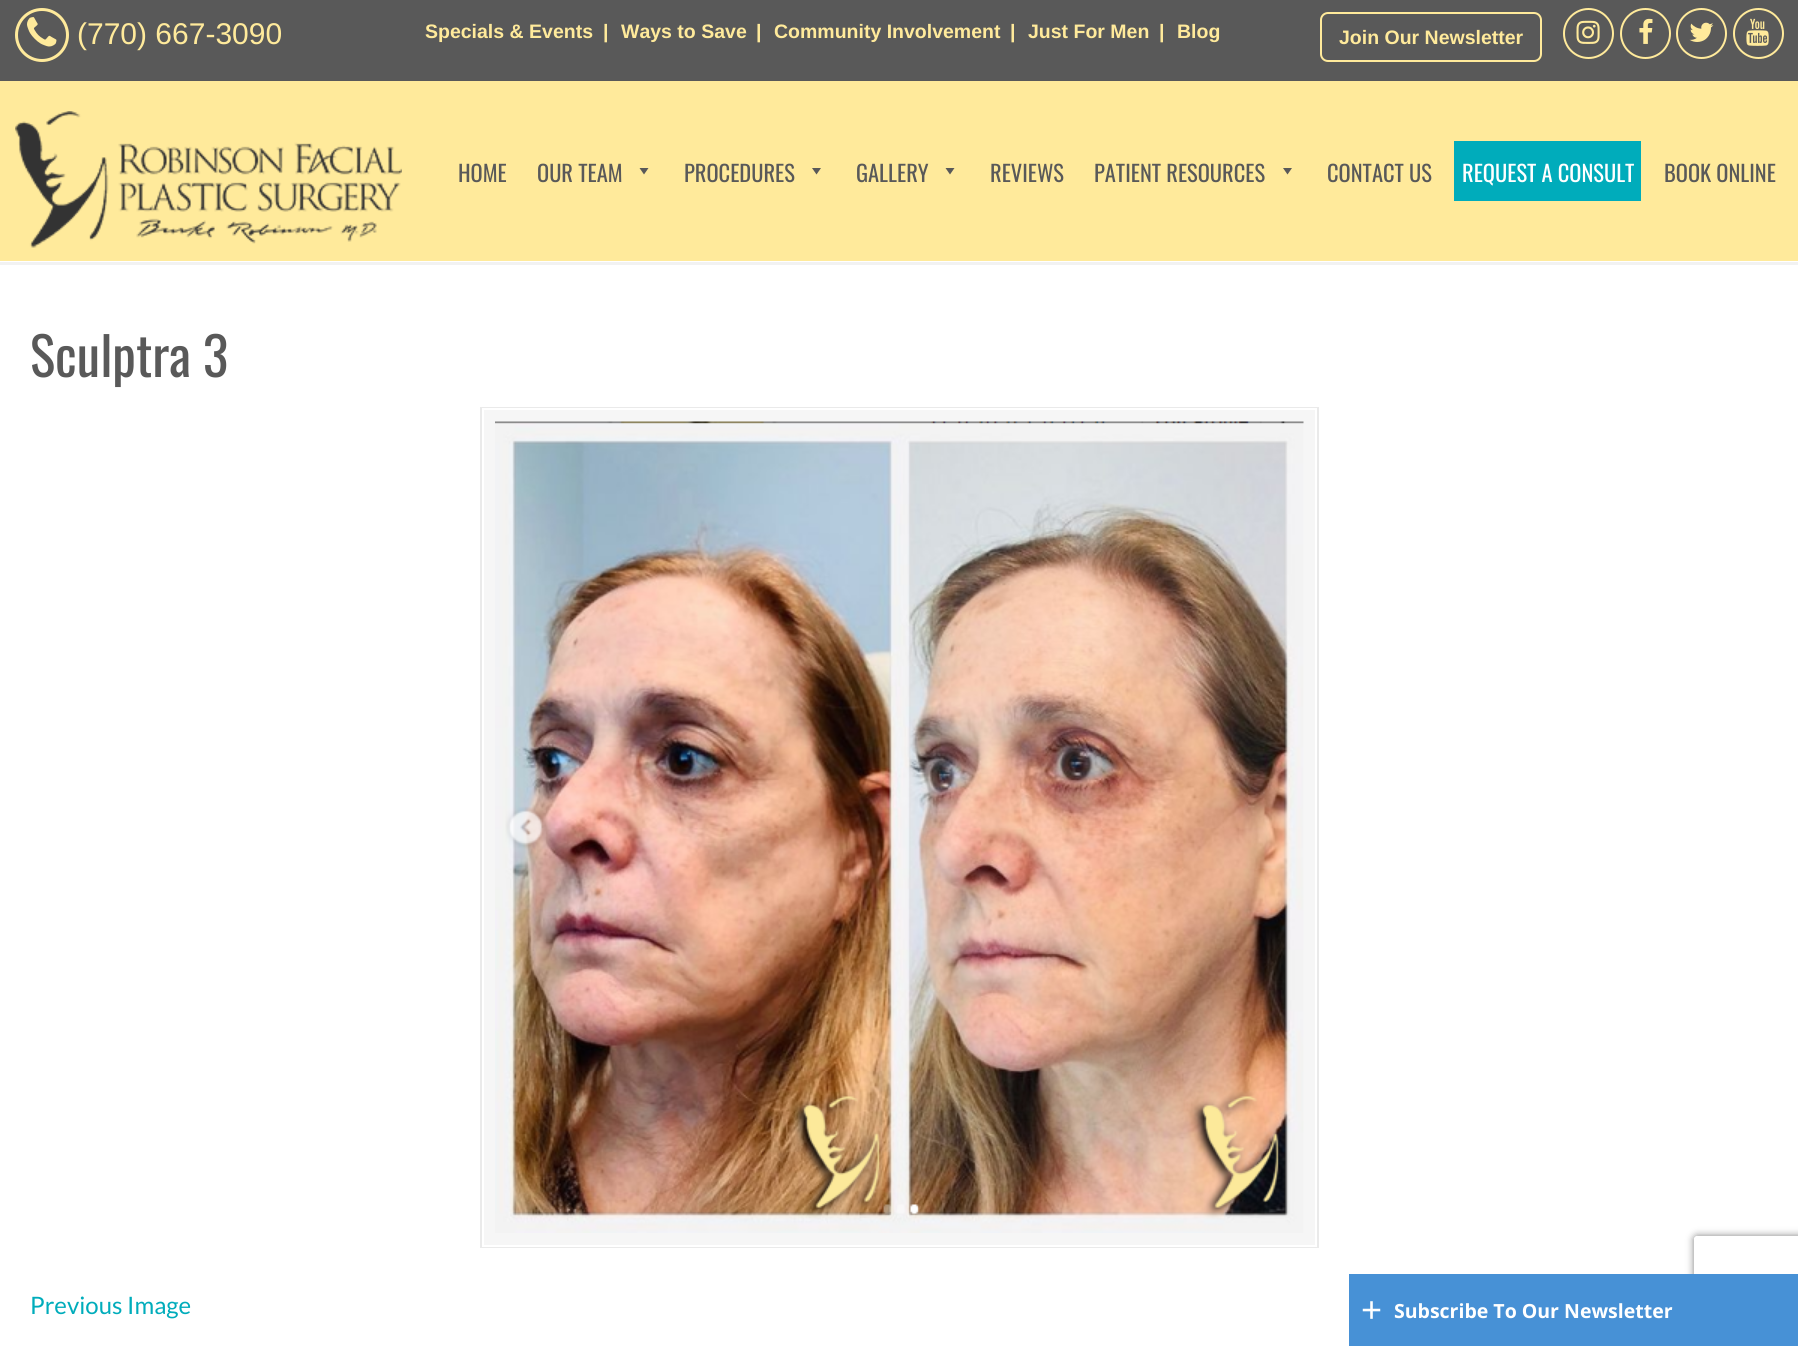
#include <cairo/cairo.h>
#include <math.h>
#include <stddef.h>

static cairo_t *cr;

static void use_color(int r, int g, int b) {
  cairo_set_source_rgb(cr, r / 255.0, g / 255.0, b / 255.0);
}

static void text(double x, double y, const char *s, const char *family, double size, int italic, int bold, int r, int g, int b) {
  cairo_select_font_face(cr, family, italic ? CAIRO_FONT_SLANT_ITALIC : CAIRO_FONT_SLANT_NORMAL,
    bold ? CAIRO_FONT_WEIGHT_BOLD : CAIRO_FONT_WEIGHT_NORMAL);
  cairo_set_font_size(cr, size);
  use_color(r, g, b);
  cairo_move_to(cr, x, y);
  cairo_show_text(cr, s);
}

static void box(double x, double y, double w, double h, int r, int g, int b) {
  use_color(r, g, b);
  cairo_rectangle(cr, x, y, w, h);
  cairo_fill(cr);
}

static void round_rect(double x, double y, double w, double h, double r) {
  cairo_new_sub_path(cr);
  cairo_arc(cr, x + w - r, y + h - r, r, 0, M_PI / 2);
  cairo_arc(cr, x + r, y + h - r, r, M_PI / 2, M_PI);
  cairo_arc(cr, x + r, y + r, r, M_PI, 1.5 * M_PI);
  cairo_arc(cr, x + w - r, y + r, r, 1.5 * M_PI, 2 * M_PI);
  cairo_close_path(cr);
}

static void shadow(double x, double y, double w, double h, double r, double blur, double alpha) {
  cairo_push_group_with_content(cr, CAIRO_CONTENT_ALPHA);
  cairo_set_operator(cr, CAIRO_OPERATOR_SOURCE);
  for (int i = 15; i >= -15 && fmin(w, h) + blur * i / 3 > 0; i -= 2) {
    double e = blur * i / 6;
    cairo_set_source_rgba(cr, 0, 0, 0, alpha * erfc((i - 1) / 8.5) / 2);
    round_rect(x - e, y - e, w + 2 * e, h + 2 * e, fmax(0, fmin(r + e + blur * .6, fmin(w, h) / 2 + e)));
    cairo_fill(cr);
  }
  cairo_pattern_t *soft = cairo_pop_group(cr);
  cairo_mask(cr, soft);
  cairo_pattern_destroy(soft);
}

static void picture(const char *path, double x, double y, double w, double h) {
  cairo_surface_t *image = cairo_image_surface_create_from_png(path);
  cairo_save(cr);
  cairo_set_source_surface(cr, image, x, y);
  cairo_rectangle(cr, x, y, w, h);
  cairo_fill(cr);
  cairo_restore(cr);
  cairo_surface_destroy(image);
}

static void draw(void) {
  use_color(255, 255, 255);
  cairo_paint(cr);
  box(0, 81, 1798, 180, 255, 234, 155);
  box(0, 0, 1798, 81, 89, 89, 89);
  cairo_arc(cr, 42, 35, 25.5, 0, 2 * M_PI);
  use_color(255, 234, 155);
  cairo_set_line_width(cr, 3);
  cairo_stroke(cr);
  picture("img_01.png", 27, 17, 30, 30);
  round_rect(1321, 13, 220, 48, 7);
  cairo_set_line_width(cr, 2);
  cairo_stroke(cr);
  cairo_arc(cr, 1588.5, 33.5, 24.5, 0, 2 * M_PI);
  cairo_stroke(cr);
  picture("img_02.png", 1576, 20, 24, 24);
  cairo_arc(cr, 1645.5, 33.5, 24.5, 0, 2 * M_PI);
  cairo_stroke(cr);
  picture("img_03.png", 1639, 18, 14, 26);
  cairo_arc(cr, 1701.5, 33.5, 24.5, 0, 2 * M_PI);
  cairo_stroke(cr);
  picture("img_04.png", 1689, 22, 25, 20);
  cairo_arc(cr, 1758.5, 33.5, 24.5, 0, 2 * M_PI);
  cairo_stroke(cr);
  picture("img_05.png", 1746, 18, 23, 28);
  picture("img_06.png", 15, 111, 387, 137);
  use_color(89, 89, 89);
  cairo_new_path(cr);
  cairo_move_to(cr, 648.5, 168);
  cairo_line_to(cr, 644, 174.5);
  cairo_line_to(cr, 639.5, 168);
  cairo_close_path(cr);
  cairo_fill(cr);
  cairo_new_path(cr);
  cairo_move_to(cr, 821, 168);
  cairo_line_to(cr, 816.5, 174.5);
  cairo_line_to(cr, 812, 168);
  cairo_close_path(cr);
  cairo_fill(cr);
  cairo_new_path(cr);
  cairo_move_to(cr, 954.5, 168);
  cairo_line_to(cr, 950, 174.5);
  cairo_line_to(cr, 945.5, 168);
  cairo_close_path(cr);
  cairo_fill(cr);
  cairo_new_path(cr);
  cairo_move_to(cr, 1292, 168);
  cairo_line_to(cr, 1287.5, 174.5);
  cairo_line_to(cr, 1283, 168);
  cairo_close_path(cr);
  cairo_fill(cr);
  box(1454, 141, 187, 60, 0, 172, 187);
  box(0, 262, 1798, 3, 242, 242, 242);
  box(484, 410, 831, 835, 246, 246, 246);
  cairo_rectangle(cr, 481, 408, 837, 839);
  use_color(234, 234, 234);
  cairo_stroke(cr);
  cairo_rectangle(cr, 483, 409, 833, 837);
  use_color(255, 255, 255);
  cairo_stroke(cr);
  picture("img_07.png", 495, 421, 809, 812);
  cairo_save(cr);
  cairo_set_fill_rule(cr, CAIRO_FILL_RULE_EVEN_ODD);
  cairo_new_path(cr);
  cairo_move_to(cr, 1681, 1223);
  cairo_line_to(cr, 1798, 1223);
  cairo_line_to(cr, 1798, 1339);
  cairo_line_to(cr, 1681, 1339);
  cairo_close_path(cr);
  cairo_move_to(cr, 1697, 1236);
  cairo_line_to(cr, 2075, 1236);
  cairo_curve_to(cr, 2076.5, 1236, 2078, 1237.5, 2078, 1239);
  cairo_line_to(cr, 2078, 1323);
  cairo_curve_to(cr, 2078, 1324.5, 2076.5, 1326, 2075, 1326);
  cairo_line_to(cr, 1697, 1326);
  cairo_curve_to(cr, 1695.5, 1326, 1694, 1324.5, 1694, 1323);
  cairo_line_to(cr, 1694, 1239);
  cairo_curve_to(cr, 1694, 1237.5, 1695.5, 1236, 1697, 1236);
  cairo_close_path(cr);
  cairo_clip(cr);
  use_color(128, 128, 128);
  shadow(1694, 1236, 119, 90, 3, 4, 1);
  cairo_restore(cr);
  box(1349, 1274, 449, 72, 71, 145, 214);
  text(77, 44, "(770) 667-3090", "Liberation Sans", 30, 0, 0, 255, 234, 155);
  text(425, 38, "Specials & Events", "Liberation Sans", 19.5, 0, 1, 255, 234, 155);
  text(603, 38, "|", "Liberation Sans", 19.5, 0, 1, 255, 234, 155);
  text(621, 38, "Ways to Save", "Liberation Sans", 19.5, 0, 1, 255, 234, 155);
  text(756, 38, "|", "Liberation Sans", 19.5, 0, 1, 255, 234, 155);
  text(774, 38, "Community Involvement", "Liberation Sans", 19.5, 0, 1, 255, 234, 155);
  text(1010, 38, "|", "Liberation Sans", 19.5, 0, 1, 255, 234, 155);
  text(1028, 38, "Just For Men", "Liberation Sans", 19.5, 0, 1, 255, 234, 155);
  text(1159, 38, "|", "Liberation Sans", 19.5, 0, 1, 255, 234, 155);
  text(1177, 38, "Blog", "Liberation Sans", 19.5, 0, 1, 255, 234, 155);
  text(1339, 44, "Join Our Newsletter", "Liberation Sans", 19.5, 0, 1, 255, 234, 155);
  text(458, 182, "HOME", "Oswald", 22.5, 0, 0, 89, 89, 89);
  text(537, 182, "OUR TEAM", "Oswald", 22.5, 0, 0, 89, 89, 89);
  text(684, 182, "PROCEDURES", "Oswald", 22.5, 0, 0, 89, 89, 89);
  text(856, 182, "GALLERY", "Oswald", 22.5, 0, 0, 89, 89, 89);
  text(990, 182, "REVIEWS", "Oswald", 22.5, 0, 0, 89, 89, 89);
  text(1094, 182, "PATIENT RESOURCES", "Oswald", 22.5, 0, 0, 89, 89, 89);
  text(1327, 182, "CONTACT US", "Oswald", 22.5, 0, 0, 89, 89, 89);
  text(1462, 182, "REQUEST A CONSULT", "Oswald", 22.5, 0, 0, 255, 255, 255);
  text(1664, 182, "BOOK ONLINE", "Oswald", 22.5, 0, 0, 89, 89, 89);
  text(30, 377, "Sculptra 3", "Oswald", 53, 0, 0, 89, 89, 89);
  text(30, 1314, "Previous Image", "Lato", 24, 0, 0, 0, 172, 187);
  text(1361, 1322, "+", "Liberation Sans", 36, 0, 0, 255, 255, 255);
  text(1394, 1318, "Subscribe To Our Newsletter", "Open Sans", 19.5, 0, 1, 255, 255, 255);
}

int main(void) {
  cairo_surface_t *surface = cairo_image_surface_create(CAIRO_FORMAT_RGB24, 1798, 1346);
  cr = cairo_create(surface);
  cairo_font_options_t *options = cairo_font_options_create();
  cairo_font_options_set_hint_metrics(options, CAIRO_HINT_METRICS_OFF);
  cairo_font_options_set_hint_style(options, CAIRO_HINT_STYLE_NONE);
  cairo_set_font_options(cr, options);
  cairo_set_miter_limit(cr, 4);
  draw();
  cairo_surface_write_to_png(surface, "out.png");
  cairo_font_options_destroy(options);
  cairo_destroy(cr);
  cairo_surface_destroy(surface);
  return 0;
}
